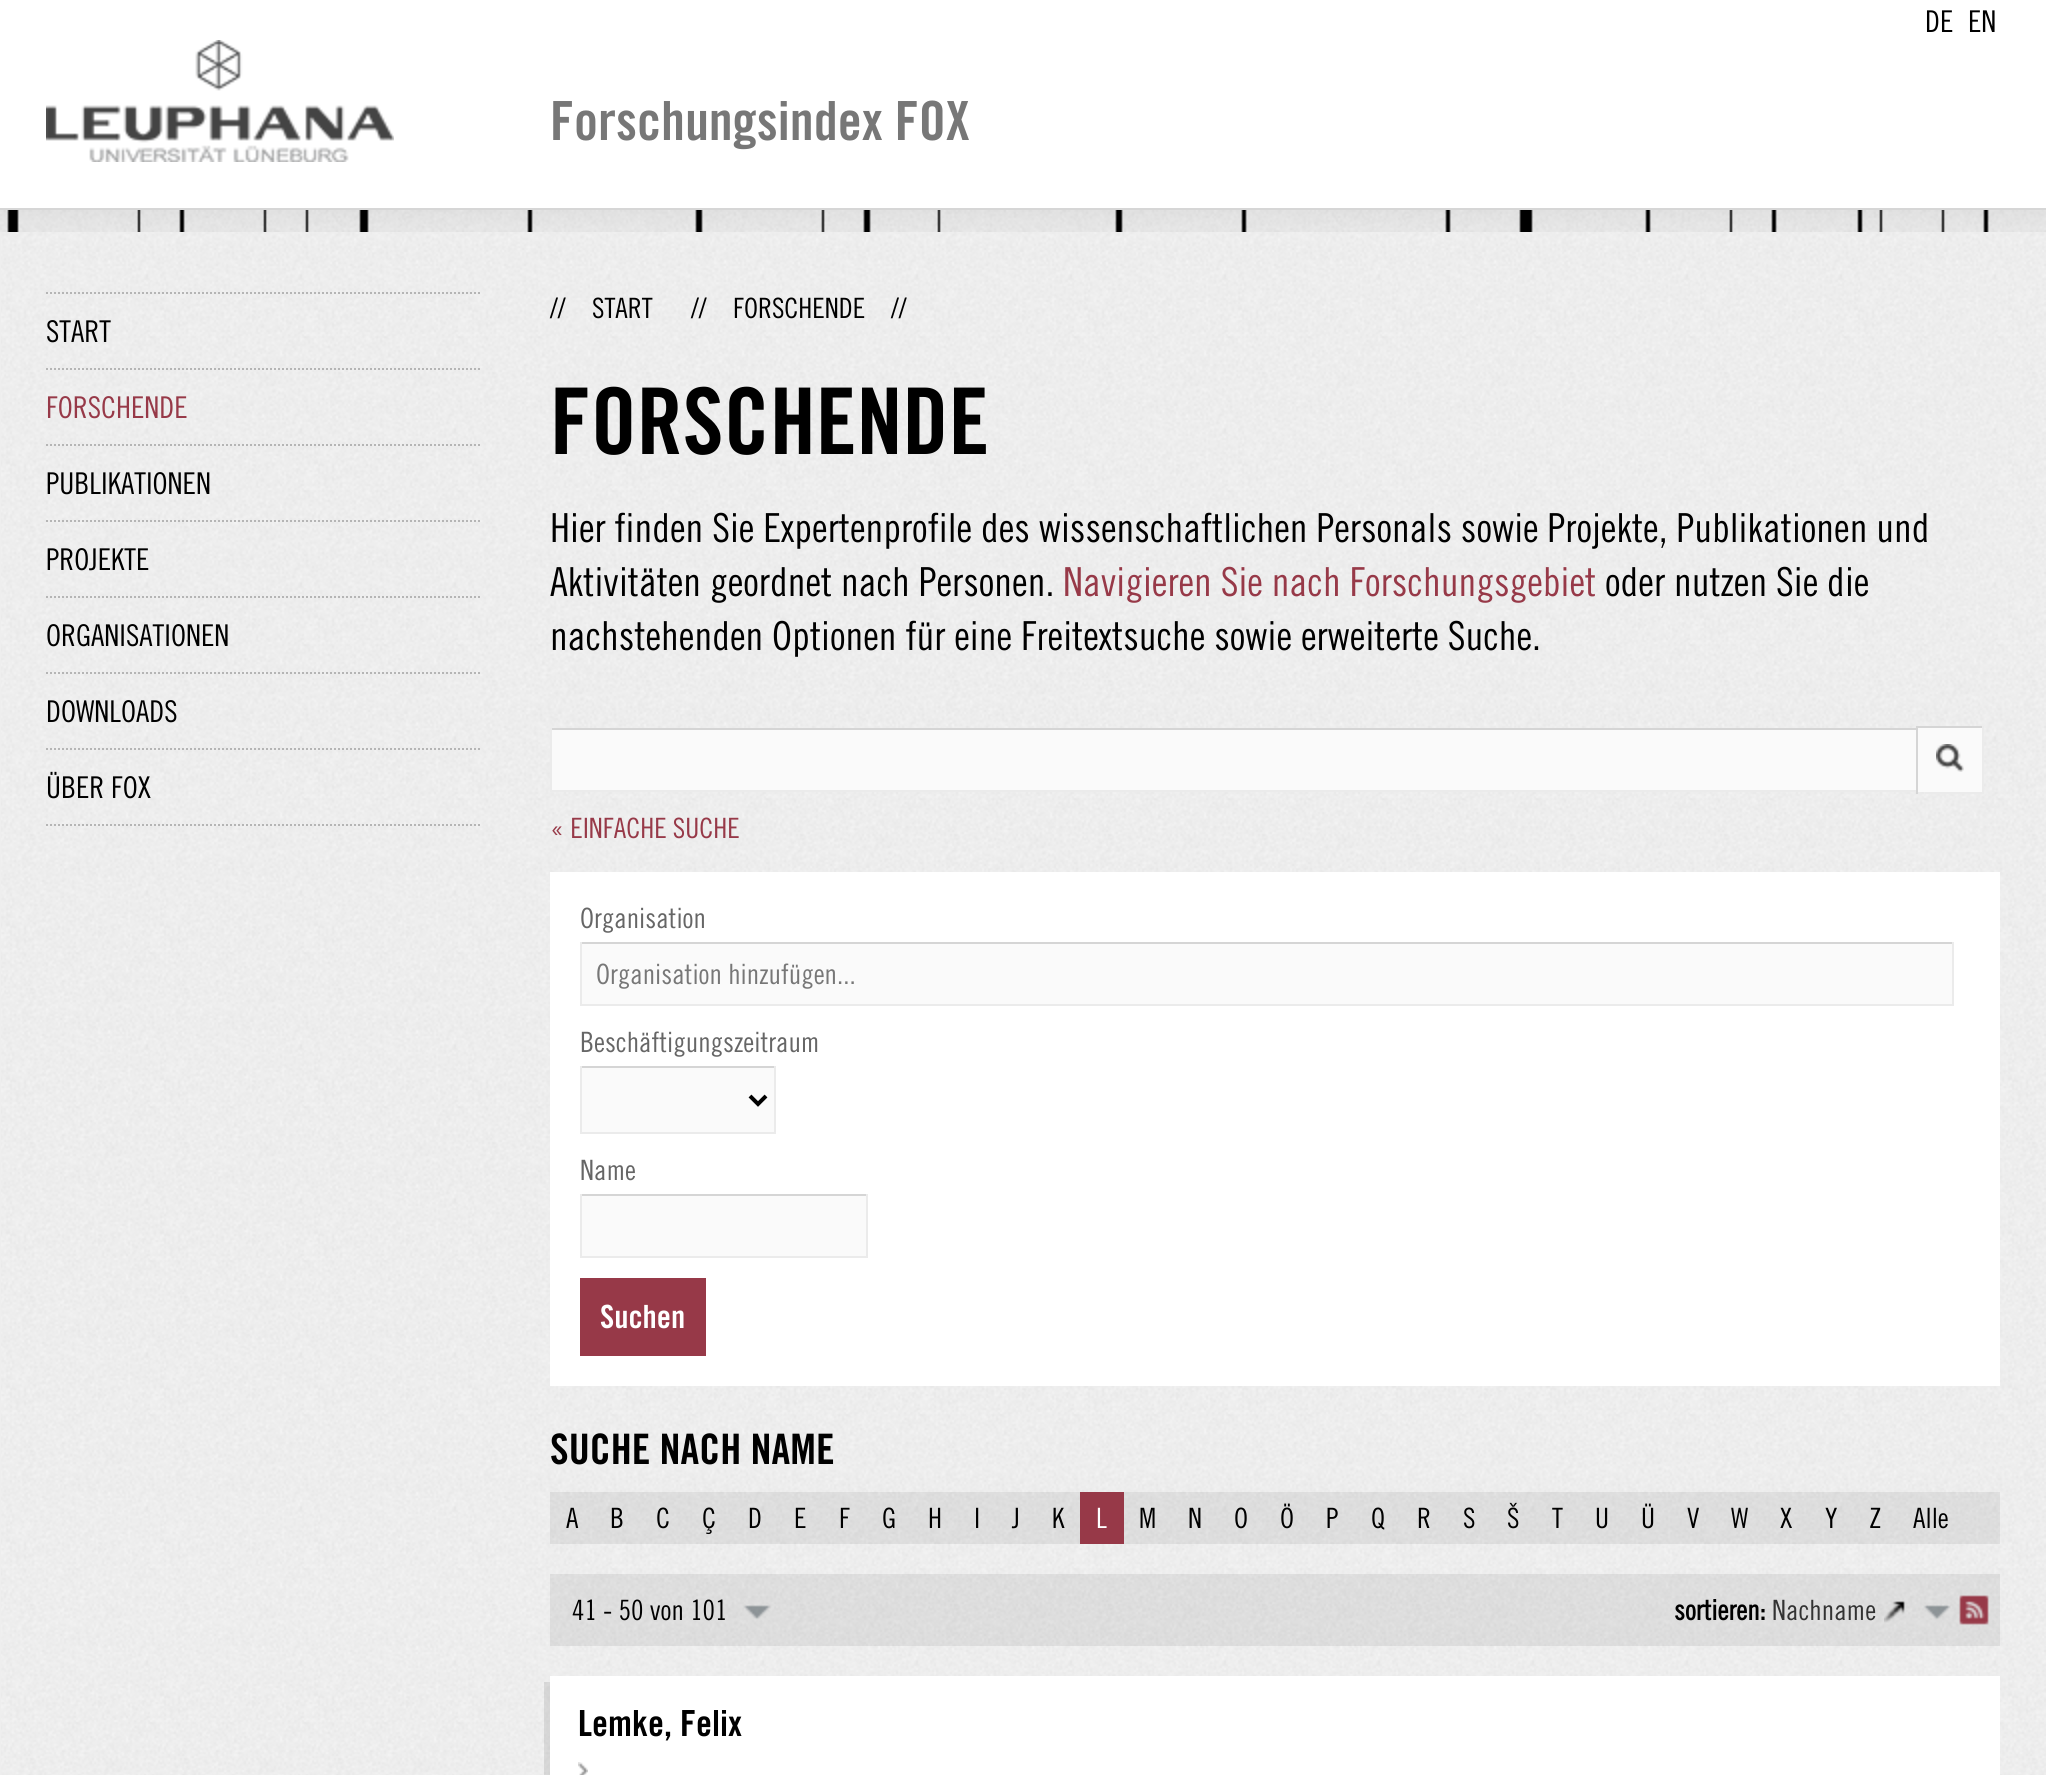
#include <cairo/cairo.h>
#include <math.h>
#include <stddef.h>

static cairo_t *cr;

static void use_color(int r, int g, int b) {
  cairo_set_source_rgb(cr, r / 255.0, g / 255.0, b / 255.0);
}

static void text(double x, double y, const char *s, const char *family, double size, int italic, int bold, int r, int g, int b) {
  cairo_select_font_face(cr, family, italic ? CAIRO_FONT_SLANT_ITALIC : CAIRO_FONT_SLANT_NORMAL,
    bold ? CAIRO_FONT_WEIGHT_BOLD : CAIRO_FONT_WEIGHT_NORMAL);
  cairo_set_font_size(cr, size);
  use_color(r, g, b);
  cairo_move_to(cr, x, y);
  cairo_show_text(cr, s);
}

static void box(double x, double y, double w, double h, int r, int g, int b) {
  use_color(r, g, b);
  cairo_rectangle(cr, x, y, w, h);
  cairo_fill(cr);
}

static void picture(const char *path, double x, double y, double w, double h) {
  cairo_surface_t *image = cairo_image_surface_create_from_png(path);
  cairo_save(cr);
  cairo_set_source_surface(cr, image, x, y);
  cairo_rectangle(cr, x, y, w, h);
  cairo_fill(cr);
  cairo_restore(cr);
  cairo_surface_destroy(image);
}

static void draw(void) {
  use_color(238, 238, 238);
  cairo_paint(cr);
  picture("img_01.png", 1, 232, 2045, 1543);
  box(0, 0, 2046, 208, 255, 255, 255);
  box(0, 208, 2046, 2, 214, 214, 214);
  picture("img_02.png", 46, 40, 348, 122);
  picture("img_03.png", 0, 210, 2046, 22);
  cairo_new_path(cr);
  cairo_move_to(cr, 46, 825);
  cairo_line_to(cr, 480, 825);
  use_color(181, 181, 181);
  cairo_set_dash(cr, (double[]){2, 2}, 2, 0);
  cairo_stroke(cr);
  cairo_new_path(cr);
  cairo_move_to(cr, 46, 293);
  cairo_line_to(cr, 480, 293);
  cairo_stroke(cr);
  cairo_new_path(cr);
  cairo_move_to(cr, 46, 369);
  cairo_line_to(cr, 480, 369);
  cairo_stroke(cr);
  cairo_new_path(cr);
  cairo_move_to(cr, 46, 445);
  cairo_line_to(cr, 480, 445);
  cairo_stroke(cr);
  cairo_new_path(cr);
  cairo_move_to(cr, 46, 521);
  cairo_line_to(cr, 480, 521);
  cairo_stroke(cr);
  cairo_new_path(cr);
  cairo_move_to(cr, 46, 597);
  cairo_line_to(cr, 480, 597);
  cairo_stroke(cr);
  cairo_new_path(cr);
  cairo_move_to(cr, 46, 673);
  cairo_line_to(cr, 480, 673);
  cairo_stroke(cr);
  cairo_new_path(cr);
  cairo_move_to(cr, 46, 749);
  cairo_line_to(cr, 480, 749);
  cairo_stroke(cr);
  box(552, 730, 1364, 60, 250, 250, 250);
  box(550, 728, 1374, 2, 213, 213, 213);
  box(550, 790, 1374, 2, 235, 235, 235);
  box(550, 728, 2, 64, 235, 235, 235);
  box(1918, 728, 64, 64, 250, 250, 250);
  box(1916, 726, 68, 2, 213, 213, 213);
  box(1982, 726, 2, 68, 235, 235, 235);
  box(1925, 792, 59, 2, 235, 235, 235);
  box(1916, 726, 2, 68, 213, 213, 213);
  picture("img_04.png", 1936, 744, 28, 28);
  box(550, 872, 1450, 514, 255, 255, 255);
  box(582, 944, 1370, 60, 250, 250, 250);
  box(580, 942, 1374, 2, 213, 213, 213);
  box(1952, 942, 2, 64, 235, 235, 235);
  box(580, 1004, 1374, 2, 235, 235, 235);
  box(580, 942, 2, 64, 235, 235, 235);
  box(582, 1068, 192, 64, 250, 250, 250);
  box(580, 1066, 196, 2, 213, 213, 213);
  box(774, 1066, 2, 68, 235, 235, 235);
  box(580, 1132, 196, 2, 235, 235, 235);
  box(580, 1066, 2, 68, 235, 235, 235);
  cairo_new_path(cr);
  cairo_move_to(cr, 750, 1096);
  cairo_line_to(cr, 758, 1104);
  cairo_line_to(cr, 766, 1096);
  use_color(0, 0, 0);
  cairo_set_line_width(cr, 4);
  cairo_set_dash(cr, NULL, 0, 0);
  cairo_stroke(cr);
  box(582, 1196, 284, 60, 250, 250, 250);
  box(580, 1194, 288, 2, 213, 213, 213);
  box(866, 1194, 2, 64, 235, 235, 235);
  box(580, 1256, 288, 2, 235, 235, 235);
  box(580, 1194, 2, 64, 235, 235, 235);
  box(580, 1278, 126, 78, 151, 57, 72);
  cairo_set_source_rgba(cr, 0, 0, 0, 0.07);
  cairo_rectangle(cr, 550, 1492, 1450, 52);
  cairo_fill(cr);
  box(1080, 1492, 44, 52, 151, 57, 72);
  cairo_set_source_rgba(cr, 0, 0, 0, 0.07);
  cairo_rectangle(cr, 550, 1574, 1450, 72);
  cairo_fill(cr);
  picture("img_05.png", 743, 1605, 28, 15);
  picture("img_06.png", 1923, 1605, 28, 15);
  picture("img_07.png", 1884, 1601, 21, 22);
  picture("img_08.png", 1959, 1595, 30, 30);
  cairo_set_source_rgba(cr, 0, 0, 0, 0.1);
  cairo_new_path(cr);
  cairo_move_to(cr, 544, 1682);
  cairo_line_to(cr, 544, 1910);
  cairo_line_to(cr, 1994, 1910);
  cairo_line_to(cr, 1994, 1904);
  cairo_line_to(cr, 550, 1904);
  cairo_line_to(cr, 550, 1682);
  cairo_close_path(cr);
  cairo_fill(cr);
  box(550, 1676, 1450, 99, 255, 255, 255);
  picture("img_09.png", 578, 1762, 10, 13);
  text(1925, 32, "DE", "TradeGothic", 30, 0, 0, 0, 0, 0);
  text(1968, 32, "EN", "TradeGothic", 30, 0, 0, 0, 0, 0);
  text(550, 140, "Forschungsindex FOX", "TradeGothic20", 54, 0, 1, 119, 119, 119);
  text(46, 342, "START", "TradeGothic", 30, 0, 0, 0, 0, 0);
  text(46, 418, "FORSCHENDE", "TradeGothic", 30, 0, 0, 151, 57, 72);
  text(46, 494, "PUBLIKATIONEN", "TradeGothic", 30, 0, 0, 0, 0, 0);
  text(46, 570, "PROJEKTE", "TradeGothic", 30, 0, 0, 0, 0, 0);
  text(46, 646, "ORGANISATIONEN", "TradeGothic", 30, 0, 0, 0, 0, 0);
  text(46, 722, "DOWNLOADS", "TradeGothic", 30, 0, 0, 0, 0, 0);
  text(46, 798, "ÜBER FOX", "TradeGothic", 30, 0, 0, 0, 0, 0);
  text(550, 318, "//", "TradeGothic", 28, 0, 0, 0, 0, 0);
  text(592, 318, "START", "TradeGothic", 28, 0, 0, 0, 0, 0);
  text(691, 318, "//", "TradeGothic", 28, 0, 0, 0, 0, 0);
  text(733, 318, "FORSCHENDE", "TradeGothic", 28, 0, 0, 0, 0, 0);
  text(891, 318, "//", "TradeGothic", 28, 0, 0, 0, 0, 0);
  text(550, 454, "FORSCHENDE", "TradeGothic20", 92, 0, 1, 0, 0, 0);
  text(550, 542, "Hier finden Sie Expertenprofile des wissenschaftlichen Personals sowie Projekte, Publikationen und", "TradeGothic", 40, 0, 0, 0, 0, 0);
  text(550, 596, "Aktivitäten geordnet nach Personen.", "TradeGothic", 40, 0, 0, 0, 0, 0);
  text(1063, 596, "Navigieren Sie nach Forschungsgebiet", "TradeGothic", 40, 0, 0, 151, 57, 72);
  text(1605, 596, "oder nutzen Sie die", "TradeGothic", 40, 0, 0, 0, 0, 0);
  text(550, 650, "nachstehenden Optionen für eine Freitextsuche sowie erweiterte Suche.", "TradeGothic", 40, 0, 0, 0, 0, 0);
  text(550, 838, "« EINFACHE SUCHE", "TradeGothic", 28, 0, 0, 151, 57, 72);
  text(580, 928, "Organisation", "TradeGothic", 28, 0, 0, 102, 102, 102);
  text(596, 984, "Organisation hinzufügen...", "TradeGothic", 28, 0, 0, 119, 119, 119);
  text(580, 1052, "Beschäftigungszeitraum", "TradeGothic", 28, 0, 0, 102, 102, 102);
  text(580, 1180, "Name", "TradeGothic", 28, 0, 0, 102, 102, 102);
  text(600, 1328, "Suchen", "TradeGothic20", 32, 0, 1, 255, 255, 255);
  text(550, 1464, "SUCHE NACH NAME", "TradeGothic20", 42, 0, 1, 0, 0, 0);
  text(566, 1528, "A", "TradeGothic", 28, 0, 0, 0, 0, 0);
  text(610, 1528, "B", "TradeGothic", 28, 0, 0, 0, 0, 0);
  text(656, 1528, "C", "TradeGothic", 28, 0, 0, 0, 0, 0);
  text(702, 1528, "Ç", "TradeGothic", 28, 0, 0, 0, 0, 0);
  text(748, 1528, "D", "TradeGothic", 28, 0, 0, 0, 0, 0);
  text(794, 1528, "E", "TradeGothic", 28, 0, 0, 0, 0, 0);
  text(839, 1528, "F", "TradeGothic", 28, 0, 0, 0, 0, 0);
  text(882, 1528, "G", "TradeGothic", 28, 0, 0, 0, 0, 0);
  text(928, 1528, "H", "TradeGothic", 28, 0, 0, 0, 0, 0);
  text(974, 1528, "I", "TradeGothic", 28, 0, 0, 0, 0, 0);
  text(1012, 1528, "J", "TradeGothic", 28, 0, 0, 0, 0, 0);
  text(1052, 1528, "K", "TradeGothic", 28, 0, 0, 0, 0, 0);
  text(1096, 1528, "L", "TradeGothic", 28, 0, 0, 255, 255, 255);
  text(1139, 1528, "M", "TradeGothic", 28, 0, 0, 0, 0, 0);
  text(1188, 1528, "N", "TradeGothic", 28, 0, 0, 0, 0, 0);
  text(1234, 1528, "O", "TradeGothic", 28, 0, 0, 0, 0, 0);
  text(1280, 1528, "Ö", "TradeGothic", 28, 0, 0, 0, 0, 0);
  text(1326, 1528, "P", "TradeGothic", 28, 0, 0, 0, 0, 0);
  text(1371, 1528, "Q", "TradeGothic", 28, 0, 0, 0, 0, 0);
  text(1417, 1528, "R", "TradeGothic", 28, 0, 0, 0, 0, 0);
  text(1463, 1528, "S", "TradeGothic", 28, 0, 0, 0, 0, 0);
  text(1507, 1528, "Š", "TradeGothic", 28, 0, 0, 0, 0, 0);
  text(1552, 1528, "T", "TradeGothic", 28, 0, 0, 0, 0, 0);
  text(1595, 1528, "U", "TradeGothic", 28, 0, 0, 0, 0, 0);
  text(1641, 1528, "Ü", "TradeGothic", 28, 0, 0, 0, 0, 0);
  text(1687, 1528, "V", "TradeGothic", 28, 0, 0, 0, 0, 0);
  text(1731, 1528, "W", "TradeGothic", 28, 0, 0, 0, 0, 0);
  text(1780, 1528, "X", "TradeGothic", 28, 0, 0, 0, 0, 0);
  text(1825, 1528, "Y", "TradeGothic", 28, 0, 0, 0, 0, 0);
  text(1869, 1528, "Z", "TradeGothic", 28, 0, 0, 0, 0, 0);
  text(1913, 1528, "Alle", "TradeGothic", 28, 0, 0, 0, 0, 0);
  text(572, 1620, "41 - 50 von 101", "TradeGothic", 28, 0, 0, 0, 0, 0);
  text(1674, 1620, "sortieren:", "TradeGothic", 28, 0, 1, 0, 0, 0);
  text(1772, 1620, "Nachname", "TradeGothic", 28, 0, 0, 51, 51, 51);
  text(578, 1736, "Lemke, Felix", "TradeGothic20", 36, 0, 1, 0, 0, 0);
}

int main(void) {
  cairo_surface_t *surface = cairo_image_surface_create(CAIRO_FORMAT_RGB24, 2046, 1775);
  cr = cairo_create(surface);
  cairo_font_options_t *options = cairo_font_options_create();
  cairo_font_options_set_hint_metrics(options, CAIRO_HINT_METRICS_OFF);
  cairo_font_options_set_hint_style(options, CAIRO_HINT_STYLE_NONE);
  cairo_set_font_options(cr, options);
  cairo_set_miter_limit(cr, 4);
  draw();
  cairo_surface_write_to_png(surface, "out.png");
  cairo_font_options_destroy(options);
  cairo_destroy(cr);
  cairo_surface_destroy(surface);
  return 0;
}
